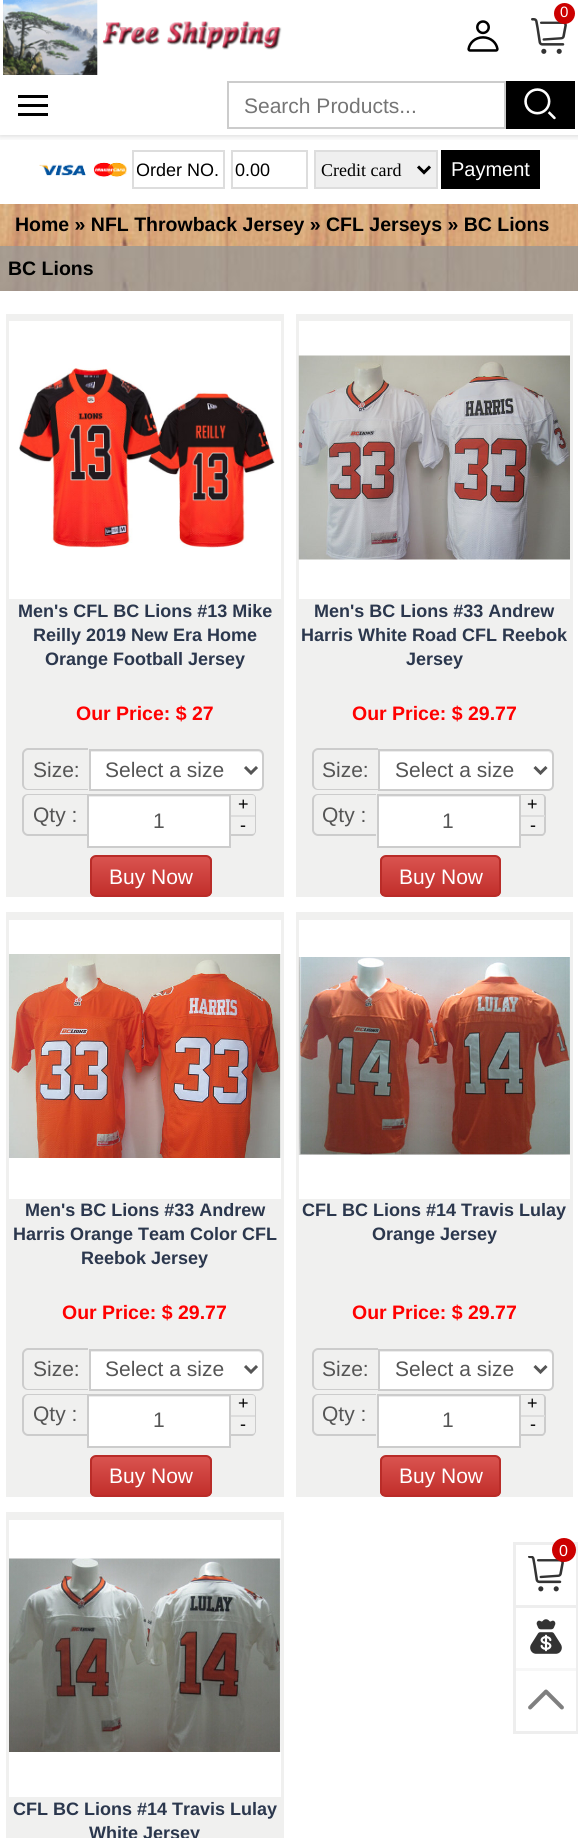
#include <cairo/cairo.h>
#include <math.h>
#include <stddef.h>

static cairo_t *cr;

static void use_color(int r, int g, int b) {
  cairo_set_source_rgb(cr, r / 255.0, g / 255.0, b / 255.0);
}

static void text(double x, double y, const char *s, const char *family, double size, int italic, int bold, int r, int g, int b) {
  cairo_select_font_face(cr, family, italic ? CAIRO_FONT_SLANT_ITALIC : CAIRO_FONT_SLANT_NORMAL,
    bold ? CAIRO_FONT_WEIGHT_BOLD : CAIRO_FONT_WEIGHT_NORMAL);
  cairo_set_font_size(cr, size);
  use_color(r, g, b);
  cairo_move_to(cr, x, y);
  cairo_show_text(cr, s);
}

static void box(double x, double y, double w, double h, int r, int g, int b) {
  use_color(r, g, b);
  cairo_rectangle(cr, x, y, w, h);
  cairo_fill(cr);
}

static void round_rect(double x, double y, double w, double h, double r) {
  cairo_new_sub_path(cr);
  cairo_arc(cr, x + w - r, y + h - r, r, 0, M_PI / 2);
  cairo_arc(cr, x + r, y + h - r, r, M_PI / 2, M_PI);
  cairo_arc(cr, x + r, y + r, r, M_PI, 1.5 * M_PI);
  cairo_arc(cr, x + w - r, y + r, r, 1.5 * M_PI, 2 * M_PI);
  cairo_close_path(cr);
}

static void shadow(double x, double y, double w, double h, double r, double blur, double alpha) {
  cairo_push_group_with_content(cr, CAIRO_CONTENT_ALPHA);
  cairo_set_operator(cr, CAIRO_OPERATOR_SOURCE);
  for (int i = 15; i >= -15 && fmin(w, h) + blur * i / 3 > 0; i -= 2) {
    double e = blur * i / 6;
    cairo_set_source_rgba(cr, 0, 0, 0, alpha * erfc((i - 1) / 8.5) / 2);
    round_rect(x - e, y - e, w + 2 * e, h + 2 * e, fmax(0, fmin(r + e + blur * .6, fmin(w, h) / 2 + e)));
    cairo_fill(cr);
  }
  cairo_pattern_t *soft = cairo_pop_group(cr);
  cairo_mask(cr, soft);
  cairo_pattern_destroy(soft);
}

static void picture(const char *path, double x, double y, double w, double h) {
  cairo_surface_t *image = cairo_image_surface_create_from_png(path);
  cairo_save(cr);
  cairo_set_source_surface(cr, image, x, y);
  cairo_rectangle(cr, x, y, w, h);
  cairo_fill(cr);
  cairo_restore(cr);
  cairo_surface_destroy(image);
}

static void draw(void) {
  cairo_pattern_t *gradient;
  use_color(255, 255, 255);
  cairo_paint(cr);
  cairo_save(cr);
  cairo_rectangle(cr, 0, 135, 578, 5);
  cairo_clip(cr);
  use_color(0, 0, 0);
  shadow(0, 0, 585, 135, 0, 4, 0.2);
  cairo_restore(cr);
  picture("img_01.png", 3, 0, 95, 75);
  picture("img_02.png", 97, 0, 185, 75);
  picture("img_03.png", 531, 18, 36, 36);
  use_color(204, 0, 0);
  cairo_arc(cr, 564.5, 13.5, 10.5, 0, 2 * M_PI);
  cairo_fill(cr);
  picture("img_04.png", 467, 20, 32, 32);
  box(18, 104, 30, 3, 0, 0, 0);
  box(18, 95, 30, 3, 0, 0, 0);
  box(18, 113, 30, 3, 0, 0, 0);
  cairo_rectangle(cr, 228, 82, 277, 46);
  use_color(204, 204, 204);
  cairo_stroke(cr);
  box(506, 81, 69, 48, 0, 0, 0);
  picture("img_05.png", 524, 88, 32, 32);
  picture("img_06.png", 39, 162, 88, 15);
  cairo_rectangle(cr, 133, 151, 91, 37);
  use_color(221, 221, 221);
  cairo_stroke(cr);
  cairo_rectangle(cr, 232, 151, 75, 37);
  cairo_stroke(cr);
  use_color(239, 239, 239);
  cairo_rectangle(cr, 315, 151, 122, 37);
  cairo_fill_preserve(cr);
  use_color(221, 221, 221);
  cairo_stroke(cr);
  cairo_new_path(cr);
  cairo_move_to(cr, 418, 166.5);
  cairo_line_to(cr, 424, 172.5);
  cairo_line_to(cr, 430, 166.5);
  use_color(0, 0, 0);
  cairo_set_line_width(cr, 3);
  cairo_stroke(cr);
  box(441, 150, 99, 39, 0, 0, 0);
  picture("img_07.png", 0, 204, 578, 42);
  picture("img_08.png", 0, 246, 578, 45);
  box(6, 314, 278, 583, 240, 240, 239);
  box(9, 321, 272, 278, 255, 255, 255);
  picture("img_09.png", 19, 368, 256, 180);
  use_color(204, 204, 204);
  cairo_set_fill_rule(cr, CAIRO_FILL_RULE_EVEN_ODD);
  cairo_new_path(cr);
  cairo_move_to(cr, 28, 748);
  cairo_line_to(cr, 88, 748);
  cairo_line_to(cr, 88, 790);
  cairo_line_to(cr, 28, 790);
  cairo_curve_to(cr, 25, 790, 22, 788, 22, 784);
  cairo_line_to(cr, 22, 754);
  cairo_curve_to(cr, 22, 751, 25, 748, 28, 748);
  cairo_close_path(cr);
  cairo_move_to(cr, 28, 750);
  cairo_line_to(cr, 88, 750);
  cairo_line_to(cr, 88, 789);
  cairo_line_to(cr, 28, 789);
  cairo_curve_to(cr, 26, 789, 24, 787, 24, 784);
  cairo_line_to(cr, 24, 754);
  cairo_curve_to(cr, 24, 752, 26, 750, 28, 750);
  cairo_close_path(cr);
  cairo_fill(cr);
  use_color(255, 255, 255);
  cairo_new_path(cr);
  cairo_move_to(cr, 89, 749);
  cairo_line_to(cr, 258, 749);
  cairo_curve_to(cr, 261.5, 749, 264, 751.5, 264, 755);
  cairo_line_to(cr, 264, 785);
  cairo_curve_to(cr, 264, 788.5, 261.5, 791, 258, 791);
  cairo_line_to(cr, 89, 791);
  cairo_close_path(cr);
  cairo_fill(cr);
  use_color(236, 236, 236);
  cairo_set_fill_rule(cr, CAIRO_FILL_RULE_WINDING);
  cairo_new_path(cr);
  cairo_move_to(cr, 90, 752);
  cairo_line_to(cr, 258, 752);
  cairo_curve_to(cr, 264, 752, 262, 763, 262, 766);
  cairo_line_to(cr, 262, 787);
  cairo_curve_to(cr, 263, 786, 263, 785, 263, 784);
  cairo_line_to(cr, 263, 755);
  cairo_curve_to(cr, 263, 752, 261, 750, 258, 750);
  cairo_line_to(cr, 90, 750);
  cairo_close_path(cr);
  cairo_fill(cr);
  cairo_new_path(cr);
  cairo_move_to(cr, 90, 750);
  cairo_line_to(cr, 258, 750);
  cairo_curve_to(cr, 261, 750, 263, 752, 263, 755);
  cairo_line_to(cr, 263, 785);
  cairo_curve_to(cr, 263, 788, 261, 790, 258, 790);
  cairo_line_to(cr, 90, 790);
  cairo_close_path(cr);
  use_color(204, 204, 204);
  cairo_set_line_width(cr, 2);
  cairo_stroke(cr);
  cairo_new_path(cr);
  cairo_move_to(cr, 245, 767);
  cairo_line_to(cr, 251, 773);
  cairo_line_to(cr, 257, 767);
  use_color(85, 85, 85);
  cairo_set_line_width(cr, 3);
  cairo_stroke(cr);
  use_color(204, 204, 204);
  cairo_set_fill_rule(cr, CAIRO_FILL_RULE_EVEN_ODD);
  cairo_new_path(cr);
  cairo_move_to(cr, 28, 794);
  cairo_line_to(cr, 87, 794);
  cairo_line_to(cr, 87, 836);
  cairo_line_to(cr, 28, 836);
  cairo_curve_to(cr, 25, 836, 22, 833, 22, 830);
  cairo_line_to(cr, 22, 800);
  cairo_curve_to(cr, 22, 796, 25, 794, 28, 794);
  cairo_close_path(cr);
  cairo_move_to(cr, 28, 795);
  cairo_line_to(cr, 87, 795);
  cairo_line_to(cr, 87, 834);
  cairo_line_to(cr, 28, 834);
  cairo_curve_to(cr, 26, 834, 24, 832, 24, 830);
  cairo_line_to(cr, 24, 800);
  cairo_curve_to(cr, 24, 797, 26, 795, 28, 795);
  cairo_close_path(cr);
  cairo_fill(cr);
  box(89, 797, 140, 49, 255, 255, 255);
  box(89, 796, 141, 1, 236, 236, 236);
  cairo_rectangle(cr, 88, 795, 142, 52);
  use_color(204, 204, 204);
  cairo_set_line_width(cr, 2);
  cairo_stroke(cr);
  cairo_new_path(cr);
  cairo_move_to(cr, 231, 794);
  cairo_line_to(cr, 252, 794);
  cairo_curve_to(cr, 254, 794, 256, 796, 256, 798);
  cairo_line_to(cr, 256, 831);
  cairo_curve_to(cr, 256, 833, 254, 836, 252, 836);
  cairo_line_to(cr, 231, 836);
  cairo_close_path(cr);
  cairo_move_to(cr, 231, 795);
  cairo_line_to(cr, 252, 795);
  cairo_curve_to(cr, 254, 795, 255, 796, 255, 798);
  cairo_line_to(cr, 255, 831);
  cairo_curve_to(cr, 255, 833, 254, 834, 252, 834);
  cairo_line_to(cr, 231, 834);
  cairo_close_path(cr);
  cairo_fill(cr);
  box(231, 815, 24, 2, 221, 221, 221);
  cairo_save(cr);
  cairo_set_fill_rule(cr, CAIRO_FILL_RULE_WINDING);
  round_rect(90, 855, 122, 42, 6);
  cairo_clip(cr);
  gradient = cairo_pattern_create_linear(151, 857, 151, 896);
  cairo_pattern_add_color_stop_rgba(gradient, 0, 0.851, 0.325, 0.31, 1);
  cairo_pattern_add_color_stop_rgba(gradient, 1, 0.757, 0.18, 0.165, 1);
  cairo_set_source(cr, gradient);
  cairo_pattern_destroy(gradient);
  cairo_rectangle(cr, 90, 857, 122, 39);
  cairo_fill(cr);
  cairo_restore(cr);
  round_rect(91, 856, 120, 40, 5);
  use_color(185, 44, 40);
  cairo_stroke(cr);
  box(296, 314, 277, 583, 240, 240, 239);
  box(299, 321, 271, 278, 255, 255, 255);
  picture("img_10.png", 298, 355, 272, 205);
  use_color(204, 204, 204);
  cairo_new_path(cr);
  cairo_move_to(cr, 318, 748);
  cairo_line_to(cr, 378, 748);
  cairo_line_to(cr, 378, 790);
  cairo_line_to(cr, 318, 790);
  cairo_curve_to(cr, 315, 790, 312, 788, 312, 784);
  cairo_line_to(cr, 312, 754);
  cairo_curve_to(cr, 312, 751, 315, 748, 318, 748);
  cairo_close_path(cr);
  cairo_move_to(cr, 318, 750);
  cairo_line_to(cr, 378, 750);
  cairo_line_to(cr, 378, 789);
  cairo_line_to(cr, 318, 789);
  cairo_curve_to(cr, 316, 789, 314, 787, 314, 784);
  cairo_line_to(cr, 314, 754);
  cairo_curve_to(cr, 314, 752, 316, 750, 318, 750);
  cairo_close_path(cr);
  cairo_fill(cr);
  use_color(255, 255, 255);
  cairo_new_path(cr);
  cairo_move_to(cr, 378, 749);
  cairo_line_to(cr, 548, 749);
  cairo_curve_to(cr, 551.5, 749, 554, 751.5, 554, 755);
  cairo_line_to(cr, 554, 785);
  cairo_curve_to(cr, 554, 788.5, 551.5, 791, 548, 791);
  cairo_line_to(cr, 378, 791);
  cairo_close_path(cr);
  cairo_fill(cr);
  use_color(236, 236, 236);
  cairo_set_fill_rule(cr, CAIRO_FILL_RULE_WINDING);
  cairo_new_path(cr);
  cairo_move_to(cr, 380, 752);
  cairo_line_to(cr, 548, 752);
  cairo_curve_to(cr, 550, 752, 552, 754, 552, 756);
  cairo_line_to(cr, 552, 755);
  cairo_curve_to(cr, 552, 752, 550, 750, 547, 750);
  cairo_line_to(cr, 380, 750);
  cairo_close_path(cr);
  cairo_fill(cr);
  cairo_new_path(cr);
  cairo_move_to(cr, 379, 750);
  cairo_line_to(cr, 548, 750);
  cairo_curve_to(cr, 551, 750, 553, 752, 553, 755);
  cairo_line_to(cr, 553, 785);
  cairo_curve_to(cr, 553, 788, 551, 790, 548, 790);
  cairo_line_to(cr, 379, 790);
  cairo_close_path(cr);
  use_color(204, 204, 204);
  cairo_stroke(cr);
  cairo_new_path(cr);
  cairo_move_to(cr, 534.5, 767);
  cairo_line_to(cr, 540.5, 773);
  cairo_line_to(cr, 546.5, 767);
  use_color(85, 85, 85);
  cairo_set_line_width(cr, 3);
  cairo_stroke(cr);
  use_color(204, 204, 204);
  cairo_set_fill_rule(cr, CAIRO_FILL_RULE_EVEN_ODD);
  cairo_new_path(cr);
  cairo_move_to(cr, 318, 794);
  cairo_line_to(cr, 376, 794);
  cairo_line_to(cr, 376, 836);
  cairo_line_to(cr, 318, 836);
  cairo_curve_to(cr, 315, 836, 312, 833, 312, 830);
  cairo_line_to(cr, 312, 800);
  cairo_curve_to(cr, 312, 796, 315, 794, 318, 794);
  cairo_close_path(cr);
  cairo_move_to(cr, 318, 795);
  cairo_line_to(cr, 376, 795);
  cairo_line_to(cr, 376, 834);
  cairo_line_to(cr, 318, 834);
  cairo_curve_to(cr, 316, 834, 314, 832, 314, 830);
  cairo_line_to(cr, 314, 800);
  cairo_curve_to(cr, 314, 797, 316, 795, 318, 795);
  cairo_close_path(cr);
  cairo_fill(cr);
  box(379, 797, 140, 49, 255, 255, 255);
  box(378, 796, 141, 1, 236, 236, 236);
  cairo_rectangle(cr, 378, 795, 142, 52);
  use_color(204, 204, 204);
  cairo_set_line_width(cr, 2);
  cairo_stroke(cr);
  cairo_new_path(cr);
  cairo_move_to(cr, 520, 794);
  cairo_line_to(cr, 542, 794);
  cairo_curve_to(cr, 544, 794, 546, 796, 546, 798);
  cairo_line_to(cr, 546, 831);
  cairo_curve_to(cr, 546, 833, 544, 836, 542, 836);
  cairo_line_to(cr, 520, 836);
  cairo_close_path(cr);
  cairo_move_to(cr, 520, 795);
  cairo_line_to(cr, 542, 795);
  cairo_curve_to(cr, 543, 795, 544, 796, 544, 798);
  cairo_line_to(cr, 544, 831);
  cairo_curve_to(cr, 544, 833, 543, 834, 542, 834);
  cairo_line_to(cr, 520, 834);
  cairo_close_path(cr);
  cairo_fill(cr);
  box(521, 815, 24, 2, 221, 221, 221);
  cairo_save(cr);
  cairo_set_fill_rule(cr, CAIRO_FILL_RULE_WINDING);
  round_rect(380, 855, 121, 42, 6);
  cairo_clip(cr);
  gradient = cairo_pattern_create_linear(440, 857, 440, 896);
  cairo_pattern_add_color_stop_rgba(gradient, 0, 0.851, 0.325, 0.31, 1);
  cairo_pattern_add_color_stop_rgba(gradient, 1, 0.757, 0.18, 0.165, 1);
  cairo_set_source(cr, gradient);
  cairo_pattern_destroy(gradient);
  cairo_rectangle(cr, 380, 857, 121, 39);
  cairo_fill(cr);
  cairo_restore(cr);
  round_rect(381, 856, 119, 40, 5);
  use_color(185, 44, 40);
  cairo_stroke(cr);
  box(6, 912, 278, 585, 240, 240, 239);
  box(9, 920, 272, 279, 255, 255, 255);
  picture("img_11.png", 9, 954, 272, 204);
  use_color(204, 204, 204);
  cairo_new_path(cr);
  cairo_move_to(cr, 28, 1348);
  cairo_line_to(cr, 88, 1348);
  cairo_line_to(cr, 88, 1390);
  cairo_line_to(cr, 28, 1390);
  cairo_curve_to(cr, 25, 1390, 22, 1388, 22, 1384);
  cairo_line_to(cr, 22, 1354);
  cairo_curve_to(cr, 22, 1351, 25, 1348, 28, 1348);
  cairo_close_path(cr);
  cairo_move_to(cr, 28, 1350);
  cairo_line_to(cr, 88, 1350);
  cairo_line_to(cr, 88, 1389);
  cairo_line_to(cr, 28, 1389);
  cairo_curve_to(cr, 26, 1389, 24, 1387, 24, 1384);
  cairo_line_to(cr, 24, 1354);
  cairo_curve_to(cr, 24, 1352, 26, 1350, 28, 1350);
  cairo_close_path(cr);
  cairo_fill(cr);
  use_color(255, 255, 255);
  cairo_new_path(cr);
  cairo_move_to(cr, 89, 1349);
  cairo_line_to(cr, 258, 1349);
  cairo_curve_to(cr, 261.5, 1349, 264, 1351.5, 264, 1355);
  cairo_line_to(cr, 264, 1385);
  cairo_curve_to(cr, 264, 1388.5, 261.5, 1391, 258, 1391);
  cairo_line_to(cr, 89, 1391);
  cairo_close_path(cr);
  cairo_fill(cr);
  use_color(236, 236, 236);
  cairo_set_fill_rule(cr, CAIRO_FILL_RULE_WINDING);
  cairo_new_path(cr);
  cairo_move_to(cr, 90, 1352);
  cairo_line_to(cr, 258, 1352);
  cairo_curve_to(cr, 264, 1352, 262, 1363, 262, 1366);
  cairo_line_to(cr, 262, 1387);
  cairo_curve_to(cr, 263, 1386, 263, 1385, 263, 1384);
  cairo_line_to(cr, 263, 1355);
  cairo_curve_to(cr, 263, 1352, 261, 1350, 258, 1350);
  cairo_line_to(cr, 90, 1350);
  cairo_close_path(cr);
  cairo_fill(cr);
  cairo_new_path(cr);
  cairo_move_to(cr, 90, 1350);
  cairo_line_to(cr, 258, 1350);
  cairo_curve_to(cr, 261, 1350, 263, 1352, 263, 1355);
  cairo_line_to(cr, 263, 1385);
  cairo_curve_to(cr, 263, 1388, 261, 1390, 258, 1390);
  cairo_line_to(cr, 90, 1390);
  cairo_close_path(cr);
  use_color(204, 204, 204);
  cairo_stroke(cr);
  cairo_new_path(cr);
  cairo_move_to(cr, 245, 1366);
  cairo_line_to(cr, 251, 1372);
  cairo_line_to(cr, 257, 1366);
  use_color(85, 85, 85);
  cairo_set_line_width(cr, 3);
  cairo_stroke(cr);
  use_color(204, 204, 204);
  cairo_set_fill_rule(cr, CAIRO_FILL_RULE_EVEN_ODD);
  cairo_new_path(cr);
  cairo_move_to(cr, 28, 1394);
  cairo_line_to(cr, 87, 1394);
  cairo_line_to(cr, 87, 1436);
  cairo_line_to(cr, 28, 1436);
  cairo_curve_to(cr, 25, 1436, 22, 1433, 22, 1430);
  cairo_line_to(cr, 22, 1400);
  cairo_curve_to(cr, 22, 1396, 25, 1394, 28, 1394);
  cairo_close_path(cr);
  cairo_move_to(cr, 28, 1395);
  cairo_line_to(cr, 87, 1395);
  cairo_line_to(cr, 87, 1434);
  cairo_line_to(cr, 28, 1434);
  cairo_curve_to(cr, 26, 1434, 24, 1432, 24, 1430);
  cairo_line_to(cr, 24, 1400);
  cairo_curve_to(cr, 24, 1397, 26, 1395, 28, 1395);
  cairo_close_path(cr);
  cairo_fill(cr);
  box(89, 1397, 140, 49, 255, 255, 255);
  box(89, 1396, 141, 1, 236, 236, 236);
  cairo_rectangle(cr, 88, 1395, 142, 52);
  use_color(204, 204, 204);
  cairo_set_line_width(cr, 2);
  cairo_stroke(cr);
  cairo_new_path(cr);
  cairo_move_to(cr, 231, 1394);
  cairo_line_to(cr, 252, 1394);
  cairo_curve_to(cr, 254, 1394, 256, 1396, 256, 1398);
  cairo_line_to(cr, 256, 1431);
  cairo_curve_to(cr, 256, 1433, 254, 1436, 252, 1436);
  cairo_line_to(cr, 231, 1436);
  cairo_close_path(cr);
  cairo_move_to(cr, 231, 1395);
  cairo_line_to(cr, 252, 1395);
  cairo_curve_to(cr, 254, 1395, 255, 1396, 255, 1398);
  cairo_line_to(cr, 255, 1431);
  cairo_curve_to(cr, 255, 1433, 254, 1434, 252, 1434);
  cairo_line_to(cr, 231, 1434);
  cairo_close_path(cr);
  cairo_fill(cr);
  box(231, 1415, 24, 2, 221, 221, 221);
  cairo_save(cr);
  cairo_set_fill_rule(cr, CAIRO_FILL_RULE_WINDING);
  round_rect(90, 1455, 122, 42, 6);
  cairo_clip(cr);
  gradient = cairo_pattern_create_linear(151, 1457, 151, 1496);
  cairo_pattern_add_color_stop_rgba(gradient, 0, 0.851, 0.325, 0.31, 1);
  cairo_pattern_add_color_stop_rgba(gradient, 1, 0.757, 0.18, 0.165, 1);
  cairo_set_source(cr, gradient);
  cairo_pattern_destroy(gradient);
  cairo_rectangle(cr, 90, 1457, 122, 39);
  cairo_fill(cr);
  cairo_restore(cr);
  round_rect(91, 1456, 120, 40, 5);
  use_color(185, 44, 40);
  cairo_stroke(cr);
  box(296, 912, 277, 585, 240, 240, 239);
  box(299, 920, 271, 279, 255, 255, 255);
  picture("img_12.png", 298, 957, 272, 198);
  use_color(204, 204, 204);
  cairo_new_path(cr);
  cairo_move_to(cr, 318, 1348);
  cairo_line_to(cr, 378, 1348);
  cairo_line_to(cr, 378, 1390);
  cairo_line_to(cr, 318, 1390);
  cairo_curve_to(cr, 315, 1390, 312, 1388, 312, 1384);
  cairo_line_to(cr, 312, 1354);
  cairo_curve_to(cr, 312, 1351, 315, 1348, 318, 1348);
  cairo_close_path(cr);
  cairo_move_to(cr, 318, 1350);
  cairo_line_to(cr, 378, 1350);
  cairo_line_to(cr, 378, 1389);
  cairo_line_to(cr, 318, 1389);
  cairo_curve_to(cr, 316, 1389, 314, 1387, 314, 1384);
  cairo_line_to(cr, 314, 1354);
  cairo_curve_to(cr, 314, 1352, 316, 1350, 318, 1350);
  cairo_close_path(cr);
  cairo_fill(cr);
  use_color(255, 255, 255);
  cairo_new_path(cr);
  cairo_move_to(cr, 378, 1349);
  cairo_line_to(cr, 548, 1349);
  cairo_curve_to(cr, 551.5, 1349, 554, 1351.5, 554, 1355);
  cairo_line_to(cr, 554, 1385);
  cairo_curve_to(cr, 554, 1388.5, 551.5, 1391, 548, 1391);
  cairo_line_to(cr, 378, 1391);
  cairo_close_path(cr);
  cairo_fill(cr);
  use_color(236, 236, 236);
  cairo_set_fill_rule(cr, CAIRO_FILL_RULE_WINDING);
  cairo_new_path(cr);
  cairo_move_to(cr, 380, 1352);
  cairo_line_to(cr, 548, 1352);
  cairo_curve_to(cr, 550, 1352, 552, 1354, 552, 1356);
  cairo_line_to(cr, 552, 1355);
  cairo_curve_to(cr, 552, 1352, 550, 1350, 547, 1350);
  cairo_line_to(cr, 380, 1350);
  cairo_close_path(cr);
  cairo_fill(cr);
  cairo_new_path(cr);
  cairo_move_to(cr, 379, 1350);
  cairo_line_to(cr, 548, 1350);
  cairo_curve_to(cr, 551, 1350, 553, 1352, 553, 1355);
  cairo_line_to(cr, 553, 1385);
  cairo_curve_to(cr, 553, 1388, 551, 1390, 548, 1390);
  cairo_line_to(cr, 379, 1390);
  cairo_close_path(cr);
  use_color(204, 204, 204);
  cairo_stroke(cr);
  cairo_new_path(cr);
  cairo_move_to(cr, 534.5, 1366);
  cairo_line_to(cr, 540.5, 1372);
  cairo_line_to(cr, 546.5, 1366);
  use_color(85, 85, 85);
  cairo_set_line_width(cr, 3);
  cairo_stroke(cr);
  use_color(204, 204, 204);
  cairo_set_fill_rule(cr, CAIRO_FILL_RULE_EVEN_ODD);
  cairo_new_path(cr);
  cairo_move_to(cr, 318, 1394);
  cairo_line_to(cr, 376, 1394);
  cairo_line_to(cr, 376, 1436);
  cairo_line_to(cr, 318, 1436);
  cairo_curve_to(cr, 315, 1436, 312, 1433, 312, 1430);
  cairo_line_to(cr, 312, 1400);
  cairo_curve_to(cr, 312, 1396, 315, 1394, 318, 1394);
  cairo_close_path(cr);
  cairo_move_to(cr, 318, 1395);
  cairo_line_to(cr, 376, 1395);
  cairo_line_to(cr, 376, 1434);
  cairo_line_to(cr, 318, 1434);
  cairo_curve_to(cr, 316, 1434, 314, 1432, 314, 1430);
  cairo_line_to(cr, 314, 1400);
  cairo_curve_to(cr, 314, 1397, 316, 1395, 318, 1395);
  cairo_close_path(cr);
  cairo_fill(cr);
  box(379, 1397, 140, 49, 255, 255, 255);
  box(378, 1396, 141, 1, 236, 236, 236);
  cairo_rectangle(cr, 378, 1395, 142, 52);
  use_color(204, 204, 204);
  cairo_set_line_width(cr, 2);
  cairo_stroke(cr);
  cairo_new_path(cr);
  cairo_move_to(cr, 520, 1394);
  cairo_line_to(cr, 542, 1394);
  cairo_curve_to(cr, 544, 1394, 546, 1396, 546, 1398);
  cairo_line_to(cr, 546, 1431);
  cairo_curve_to(cr, 546, 1433, 544, 1436, 542, 1436);
  cairo_line_to(cr, 520, 1436);
  cairo_close_path(cr);
  cairo_move_to(cr, 520, 1395);
  cairo_line_to(cr, 542, 1395);
  cairo_curve_to(cr, 543, 1395, 544, 1396, 544, 1398);
  cairo_line_to(cr, 544, 1431);
  cairo_curve_to(cr, 544, 1433, 543, 1434, 542, 1434);
  cairo_line_to(cr, 520, 1434);
  cairo_close_path(cr);
  cairo_fill(cr);
  box(521, 1415, 24, 2, 221, 221, 221);
  cairo_save(cr);
  cairo_set_fill_rule(cr, CAIRO_FILL_RULE_WINDING);
  round_rect(380, 1455, 121, 42, 6);
  cairo_clip(cr);
  gradient = cairo_pattern_create_linear(440, 1457, 440, 1496);
  cairo_pattern_add_color_stop_rgba(gradient, 0, 0.851, 0.325, 0.31, 1);
  cairo_pattern_add_color_stop_rgba(gradient, 1, 0.757, 0.18, 0.165, 1);
  cairo_set_source(cr, gradient);
  cairo_pattern_destroy(gradient);
  cairo_rectangle(cr, 380, 1457, 121, 39);
  cairo_fill(cr);
  cairo_restore(cr);
  round_rect(381, 1456, 119, 40, 5);
  use_color(185, 44, 40);
  cairo_stroke(cr);
  box(6, 1512, 278, 326, 240, 240, 239);
  box(9, 1520, 272, 277, 255, 255, 255);
  picture("img_13.png", 9, 1558, 272, 194);
  cairo_rectangle(cr, 514.5, 1543.5, 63, 189);
  use_color(238, 238, 238);
  cairo_set_line_width(cr, 3);
  cairo_stroke(cr);
  box(516, 1605, 60, 3, 238, 238, 238);
  picture("img_14.png", 528, 1556, 36, 36);
  use_color(204, 0, 0);
  cairo_arc(cr, 564, 1550, 12, 0, 2 * M_PI);
  cairo_fill(cr);
  picture("img_15.png", 530, 1619, 32, 35);
  box(516, 1668, 60, 3, 247, 247, 247);
  picture("img_16.png", 528, 1689, 36, 21);
  text(560, 17, "0", "Liberation Sans", 15, 0, 0, 255, 255, 255);
  text(244, 113, "Search Products...", "Liberation Sans", 21, 0, 0, 117, 117, 117);
  cairo_save(cr);
  cairo_set_fill_rule(cr, CAIRO_FILL_RULE_WINDING);
  cairo_rectangle(cr, 137, 153, 84, 33);
  cairo_clip(cr);
  text(136, 176, "Order NO.", "Liberation Sans", 18, 0, 0, 0, 0, 0);
  cairo_restore(cr);
  text(235, 176, "0.00", "Liberation Sans", 18, 0, 0, 0, 0, 0);
  text(321, 176, "Credit card", "Liberation Serif", 18, 0, 0, 0, 0, 0);
  text(451, 176, "Payment", "Liberation Sans", 20, 0, 0, 255, 255, 255);
  text(15, 231, "Home » NFL Throwback Jersey » CFL Jerseys » BC Lions", "Liberation Sans", 19.5, 0, 1, 0, 0, 0);
  text(8, 275, "BC Lions", "Liberation Sans", 19.5, 0, 1, 0, 0, 0);
  text(18, 617, "Men's CFL BC Lions #13 Mike", "Liberation Sans", 18, 0, 1, 43, 55, 77);
  text(33, 641, "Reilly 2019 New Era Home", "Liberation Sans", 18, 0, 1, 43, 55, 77);
  text(45, 665, "Orange Football Jersey", "Liberation Sans", 18, 0, 1, 43, 55, 77);
  text(76, 720, "Our Price: $ 27", "Liberation Sans", 19.5, 0, 1, 255, 0, 0);
  text(33, 777, "Size:", "Liberation Sans", 21, 0, 0, 85, 85, 85);
  text(105, 777, "Select a size", "Liberation Sans", 21, 0, 0, 85, 85, 85);
  text(33, 822, "Qty :", "Liberation Sans", 21, 0, 0, 85, 85, 85);
  text(153, 828, "1", "Liberation Sans", 21, 0, 0, 85, 85, 85);
  text(238, 810, "+", "Liberation Sans", 18, 0, 0, 0, 0, 0);
  text(240, 831, "-", "Liberation Sans", 18, 0, 0, 0, 0, 0);
  text(109, 884, "Buy Now", "Liberation Sans", 21, 0, 0, 255, 255, 255);
  text(314, 617, "Men's BC Lions #33 Andrew", "Liberation Sans", 18, 0, 1, 43, 55, 77);
  text(301, 641, "Harris White Road CFL Reebok", "Liberation Sans", 18, 0, 1, 43, 55, 77);
  text(406, 665, "Jersey", "Liberation Sans", 18, 0, 1, 43, 55, 77);
  text(352, 720, "Our Price: $ 29.77", "Liberation Sans", 19.5, 0, 1, 255, 0, 0);
  text(322, 777, "Size:", "Liberation Sans", 21, 0, 0, 85, 85, 85);
  text(395, 777, "Select a size", "Liberation Sans", 21, 0, 0, 85, 85, 85);
  text(322, 822, "Qty :", "Liberation Sans", 21, 0, 0, 85, 85, 85);
  text(442, 828, "1", "Liberation Sans", 21, 0, 0, 85, 85, 85);
  text(527, 810, "+", "Liberation Sans", 18, 0, 0, 0, 0, 0);
  text(530, 831, "-", "Liberation Sans", 18, 0, 0, 0, 0, 0);
  text(399, 884, "Buy Now", "Liberation Sans", 21, 0, 0, 255, 255, 255);
  text(25, 1216, "Men's BC Lions #33 Andrew", "Liberation Sans", 18, 0, 1, 43, 55, 77);
  text(13, 1240, "Harris Orange Team Color CFL", "Liberation Sans", 18, 0, 1, 43, 55, 77);
  text(81, 1264, "Reebok Jersey", "Liberation Sans", 18, 0, 1, 43, 55, 77);
  text(62, 1319, "Our Price: $ 29.77", "Liberation Sans", 19.5, 0, 1, 255, 0, 0);
  text(33, 1376, "Size:", "Liberation Sans", 21, 0, 0, 85, 85, 85);
  text(105, 1376, "Select a size", "Liberation Sans", 21, 0, 0, 85, 85, 85);
  text(33, 1421, "Qty :", "Liberation Sans", 21, 0, 0, 85, 85, 85);
  text(153, 1427, "1", "Liberation Sans", 21, 0, 0, 85, 85, 85);
  text(238, 1409, "+", "Liberation Sans", 18, 0, 0, 0, 0, 0);
  text(240, 1430, "-", "Liberation Sans", 18, 0, 0, 0, 0, 0);
  text(109, 1483, "Buy Now", "Liberation Sans", 21, 0, 0, 255, 255, 255);
  text(302, 1216, "CFL BC Lions #14 Travis Lulay", "Liberation Sans", 18, 0, 1, 43, 55, 77);
  text(372, 1240, "Orange Jersey", "Liberation Sans", 18, 0, 1, 43, 55, 77);
  text(352, 1319, "Our Price: $ 29.77", "Liberation Sans", 19.5, 0, 1, 255, 0, 0);
  text(322, 1376, "Size:", "Liberation Sans", 21, 0, 0, 85, 85, 85);
  text(395, 1376, "Select a size", "Liberation Sans", 21, 0, 0, 85, 85, 85);
  text(322, 1421, "Qty :", "Liberation Sans", 21, 0, 0, 85, 85, 85);
  text(442, 1427, "1", "Liberation Sans", 21, 0, 0, 85, 85, 85);
  text(527, 1409, "+", "Liberation Sans", 18, 0, 0, 0, 0, 0);
  text(530, 1430, "-", "Liberation Sans", 18, 0, 0, 0, 0, 0);
  text(399, 1483, "Buy Now", "Liberation Sans", 21, 0, 0, 255, 255, 255);
  text(13, 1815, "CFL BC Lions #14 Travis Lulay", "Liberation Sans", 18, 0, 1, 43, 55, 77);
  text(89, 1839, "White Jersey", "Liberation Sans", 18, 0, 1, 43, 55, 77);
  text(559, 1556, "0", "Liberation Sans", 16, 0, 0, 255, 255, 255);
}

int main(void) {
  cairo_surface_t *surface = cairo_image_surface_create(CAIRO_FORMAT_RGB24, 578, 1838);
  cr = cairo_create(surface);
  cairo_font_options_t *options = cairo_font_options_create();
  cairo_font_options_set_hint_metrics(options, CAIRO_HINT_METRICS_OFF);
  cairo_font_options_set_hint_style(options, CAIRO_HINT_STYLE_NONE);
  cairo_set_font_options(cr, options);
  cairo_set_miter_limit(cr, 4);
  draw();
  cairo_surface_write_to_png(surface, "out.png");
  cairo_font_options_destroy(options);
  cairo_destroy(cr);
  cairo_surface_destroy(surface);
  return 0;
}
